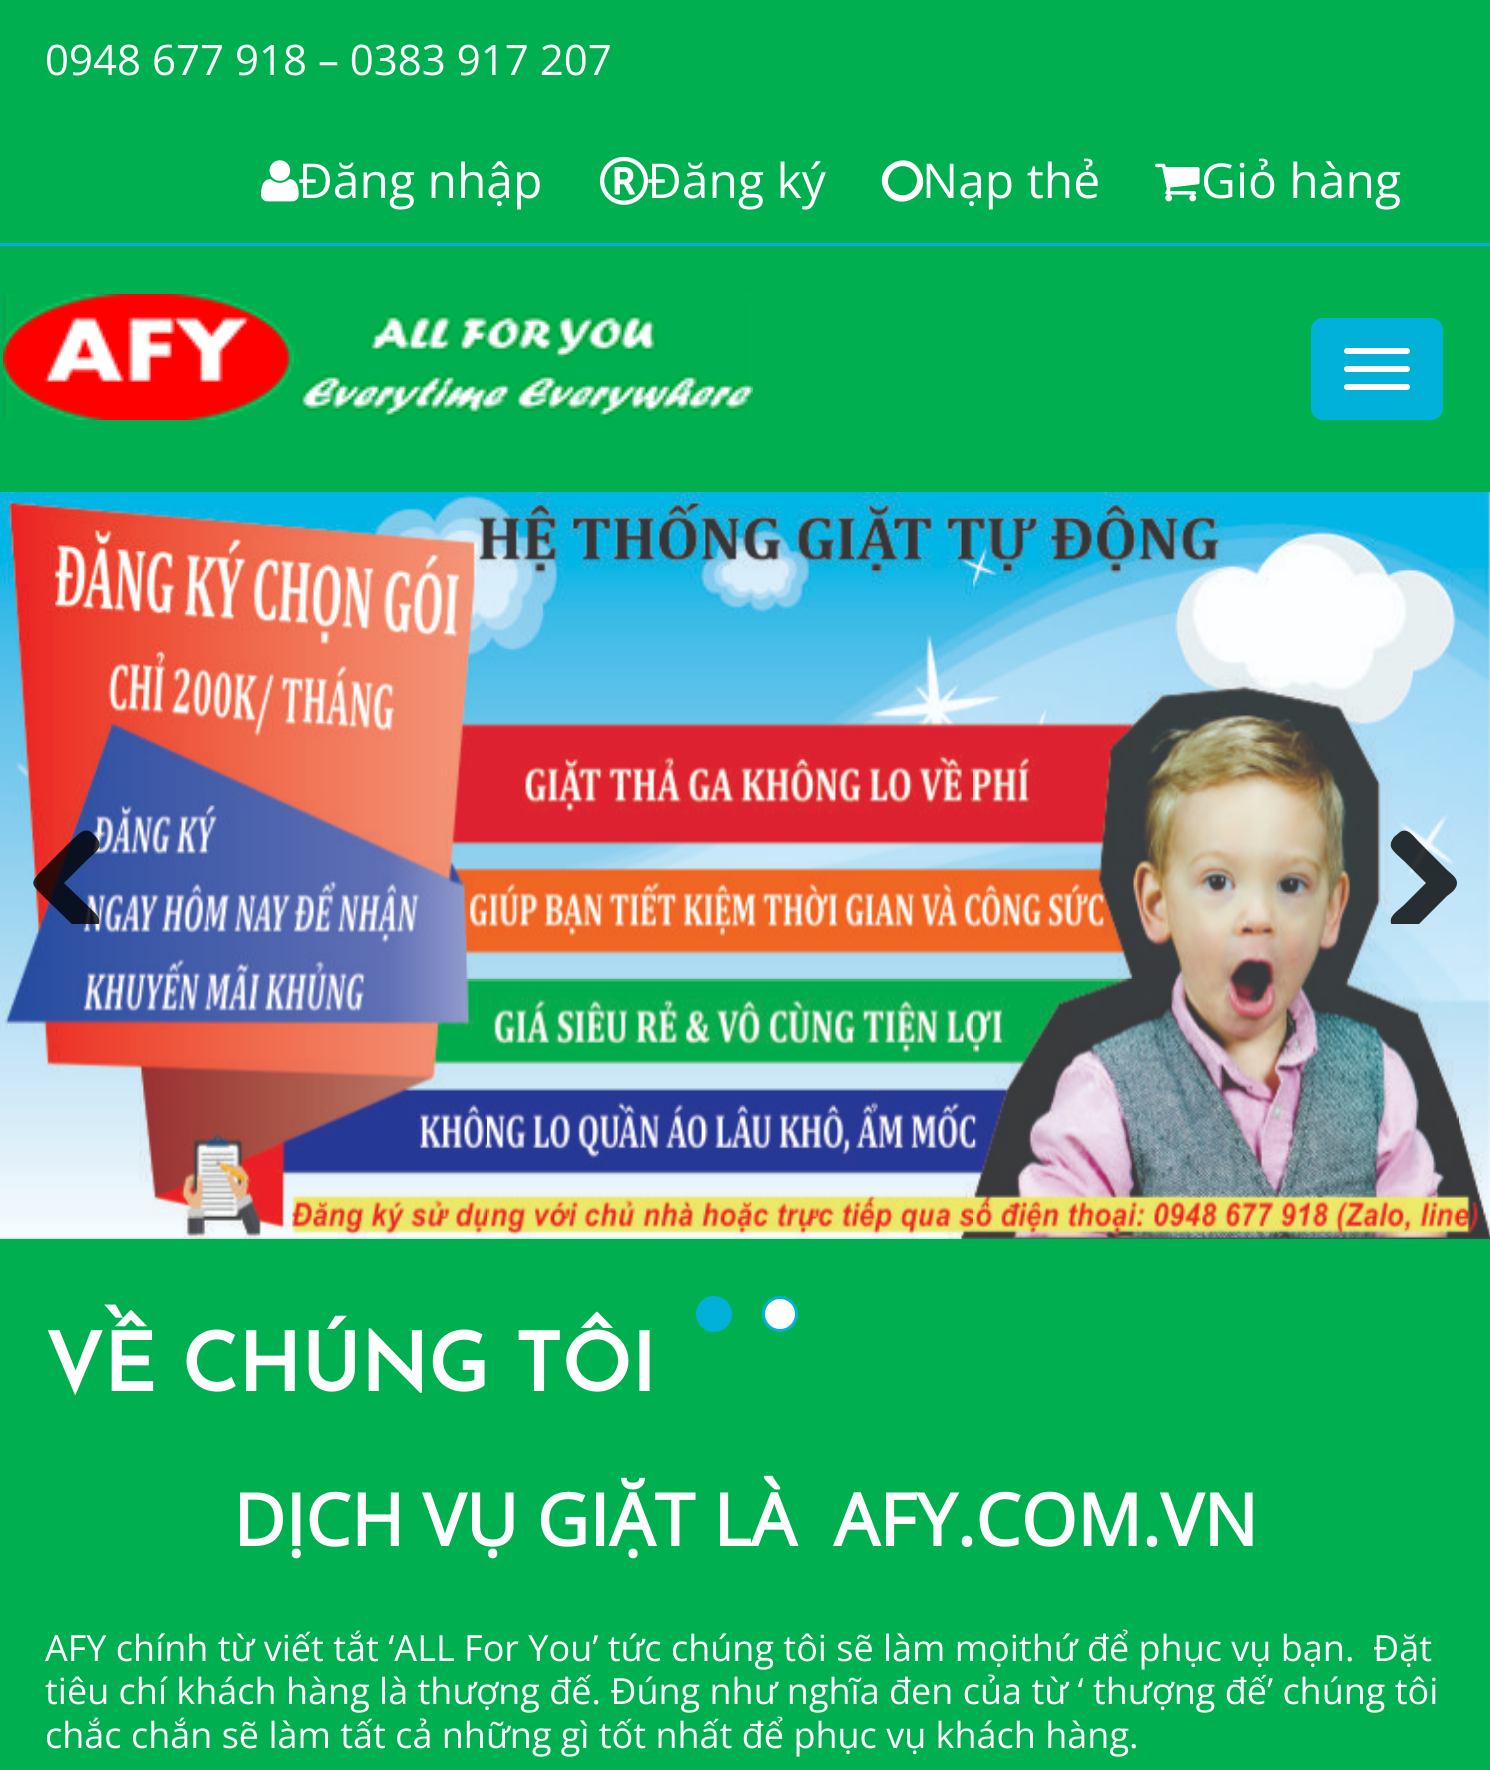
#include <cairo/cairo.h>
#include <math.h>
#include <stddef.h>

static cairo_t *cr;

static void use_color(int r, int g, int b) {
  cairo_set_source_rgb(cr, r / 255.0, g / 255.0, b / 255.0);
}

static void text(double x, double y, const char *s, const char *family, double size, int italic, int bold, int r, int g, int b) {
  cairo_select_font_face(cr, family, italic ? CAIRO_FONT_SLANT_ITALIC : CAIRO_FONT_SLANT_NORMAL,
    bold ? CAIRO_FONT_WEIGHT_BOLD : CAIRO_FONT_WEIGHT_NORMAL);
  cairo_set_font_size(cr, size);
  use_color(r, g, b);
  cairo_move_to(cr, x, y);
  cairo_show_text(cr, s);
}

static void box(double x, double y, double w, double h, int r, int g, int b) {
  use_color(r, g, b);
  cairo_rectangle(cr, x, y, w, h);
  cairo_fill(cr);
}

static void round_rect(double x, double y, double w, double h, double r) {
  cairo_new_sub_path(cr);
  cairo_arc(cr, x + w - r, y + h - r, r, 0, M_PI / 2);
  cairo_arc(cr, x + r, y + h - r, r, M_PI / 2, M_PI);
  cairo_arc(cr, x + r, y + r, r, M_PI, 1.5 * M_PI);
  cairo_arc(cr, x + w - r, y + r, r, 1.5 * M_PI, 2 * M_PI);
  cairo_close_path(cr);
}

static void picture(const char *path, double x, double y, double w, double h) {
  cairo_surface_t *image = cairo_image_surface_create_from_png(path);
  cairo_save(cr);
  cairo_set_source_surface(cr, image, x, y);
  cairo_rectangle(cr, x, y, w, h);
  cairo_fill(cr);
  cairo_restore(cr);
  cairo_surface_destroy(image);
}

static void draw(void) {
  use_color(0, 176, 80);
  cairo_paint(cr);
  box(0, 243, 1490, 3, 1, 177, 215);
  picture("img_01.png", 261, 160, 38, 42);
  picture("img_02.png", 600, 156, 48, 49);
  use_color(255, 255, 255);
  cairo_new_path(cr);
  cairo_move_to(cr, 910, 168);
  cairo_curve_to(cr, 893, 159, 879, 184, 895, 193);
  cairo_curve_to(cr, 912, 203, 926, 178, 910, 168);
  cairo_close_path(cr);
  cairo_move_to(cr, 920, 171);
  cairo_curve_to(cr, 934, 194, 898, 215, 885, 191);
  cairo_curve_to(cr, 871, 168, 907, 147, 920, 171);
  cairo_close_path(cr);
  cairo_fill(cr);
  picture("img_03.png", 1155, 163, 45, 39);
  picture("img_04.png", 3, 294, 750, 126);
  use_color(1, 177, 215);
  round_rect(1311, 318, 132, 102, 12);
  cairo_fill(cr);
  use_color(255, 255, 255);
  round_rect(1344, 348, 66, 6, 3);
  cairo_fill(cr);
  round_rect(1344, 366, 66, 6, 3);
  cairo_fill(cr);
  round_rect(1344, 384, 66, 6, 3);
  cairo_fill(cr);
  picture("img_05.png", 0, 492, 1490, 747);
  cairo_save(cr);
  cairo_rectangle(cr, 30, 804, 120, 120);
  cairo_clip(cr);
  cairo_set_source_rgba(cr, 0, 0, 0, 0.8);
  cairo_new_path(cr);
  cairo_move_to(cr, 80, 932);
  cairo_line_to(cr, 43, 896);
  cairo_curve_to(cr, 30, 883, 30, 883, 43, 869);
  cairo_line_to(cr, 72, 840);
  cairo_curve_to(cr, 77, 836, 83, 827, 91, 832);
  cairo_line_to(cr, 95, 836);
  cairo_curve_to(cr, 106, 847, 95, 852, 86, 861);
  cairo_line_to(cr, 64, 883);
  cairo_line_to(cr, 92, 910);
  cairo_curve_to(cr, 96, 914, 102, 919, 98, 926);
  cairo_line_to(cr, 92, 932);
  cairo_curve_to(cr, 89, 936, 83, 936, 80, 932);
  cairo_close_path(cr);
  cairo_fill(cr);
  cairo_restore(cr);
  cairo_save(cr);
  cairo_rectangle(cr, 1341, 804, 120, 120);
  cairo_clip(cr);
  cairo_set_source_rgba(cr, 0, 0, 0, 0.8);
  cairo_new_path(cr);
  cairo_move_to(cr, 1457, 883);
  cairo_curve_to(cr, 1457, 889, 1451, 893, 1447, 896);
  cairo_line_to(cr, 1418, 925);
  cairo_curve_to(cr, 1413, 930, 1408, 938, 1400, 934);
  cairo_line_to(cr, 1394, 929);
  cairo_curve_to(cr, 1392, 926, 1390, 923, 1391, 919);
  cairo_curve_to(cr, 1392, 914, 1401, 908, 1404, 905);
  cairo_line_to(cr, 1426, 883);
  cairo_line_to(cr, 1404, 861);
  cairo_curve_to(cr, 1401, 858, 1393, 852, 1391, 847);
  cairo_curve_to(cr, 1390, 843, 1392, 840, 1394, 837);
  cairo_line_to(cr, 1400, 832);
  cairo_curve_to(cr, 1408, 827, 1414, 837, 1418, 841);
  cairo_line_to(cr, 1447, 870);
  cairo_curve_to(cr, 1450, 873, 1457, 877, 1457, 883);
  cairo_close_path(cr);
  cairo_fill(cr);
  cairo_restore(cr);
  use_color(1, 177, 215);
  cairo_arc(cr, 714, 1314, 16.5, 0, 2 * M_PI);
  cairo_fill_preserve(cr);
  cairo_set_line_width(cr, 3);
  cairo_stroke(cr);
  use_color(255, 255, 255);
  cairo_arc(cr, 780, 1314, 16.5, 0, 2 * M_PI);
  cairo_fill_preserve(cr);
  use_color(1, 177, 215);
  cairo_stroke(cr);
  text(45, 75, "0948 677 918 – 0383 917 207", "Open Sans", 42, 0, 0, 255, 255, 255);
  text(298, 198, "Đăng nhập", "Open Sans", 48, 0, 0, 255, 255, 255);
  text(647, 198, "Đăng ký", "Open Sans", 48, 0, 0, 255, 255, 255);
  text(922, 198, "Nạp thẻ", "Open Sans", 48, 0, 0, 255, 255, 255);
  text(1201, 198, "Giỏ hàng", "Open Sans", 48, 0, 0, 255, 255, 255);
  text(45, 1391, "VỀ CHÚNG TÔI", "Josefin Sans", 81, 0, 1, 255, 255, 255);
  text(233, 1546, "DỊCH VỤ GIẶT LÀ  AFY.COM.VN", "Open Sans", 72, 0, 1, 255, 255, 255);
  text(45, 1661, "AFY chính từ viết tắt ‘ALL For You’ tức chúng tôi sẽ làm mọithứ để phục vụ bạn.  Đặt", "Open Sans", 36, 0, 0, 255, 255, 255);
  text(45, 1704, "tiêu chí khách hàng là thượng đế. Đúng như nghĩa đen của từ ‘ thượng đế’ chúng tôi", "Open Sans", 36, 0, 0, 255, 255, 255);
  text(45, 1748, "chắc chắn sẽ làm tất cả những gì tốt nhất để phục vụ khách hàng.", "Open Sans", 36, 0, 0, 255, 255, 255);
}

int main(void) {
  cairo_surface_t *surface = cairo_image_surface_create(CAIRO_FORMAT_RGB24, 1490, 1770);
  cr = cairo_create(surface);
  cairo_font_options_t *options = cairo_font_options_create();
  cairo_font_options_set_hint_metrics(options, CAIRO_HINT_METRICS_OFF);
  cairo_font_options_set_hint_style(options, CAIRO_HINT_STYLE_NONE);
  cairo_set_font_options(cr, options);
  cairo_set_miter_limit(cr, 4);
  draw();
  cairo_surface_write_to_png(surface, "out.png");
  cairo_font_options_destroy(options);
  cairo_destroy(cr);
  cairo_surface_destroy(surface);
  return 0;
}
